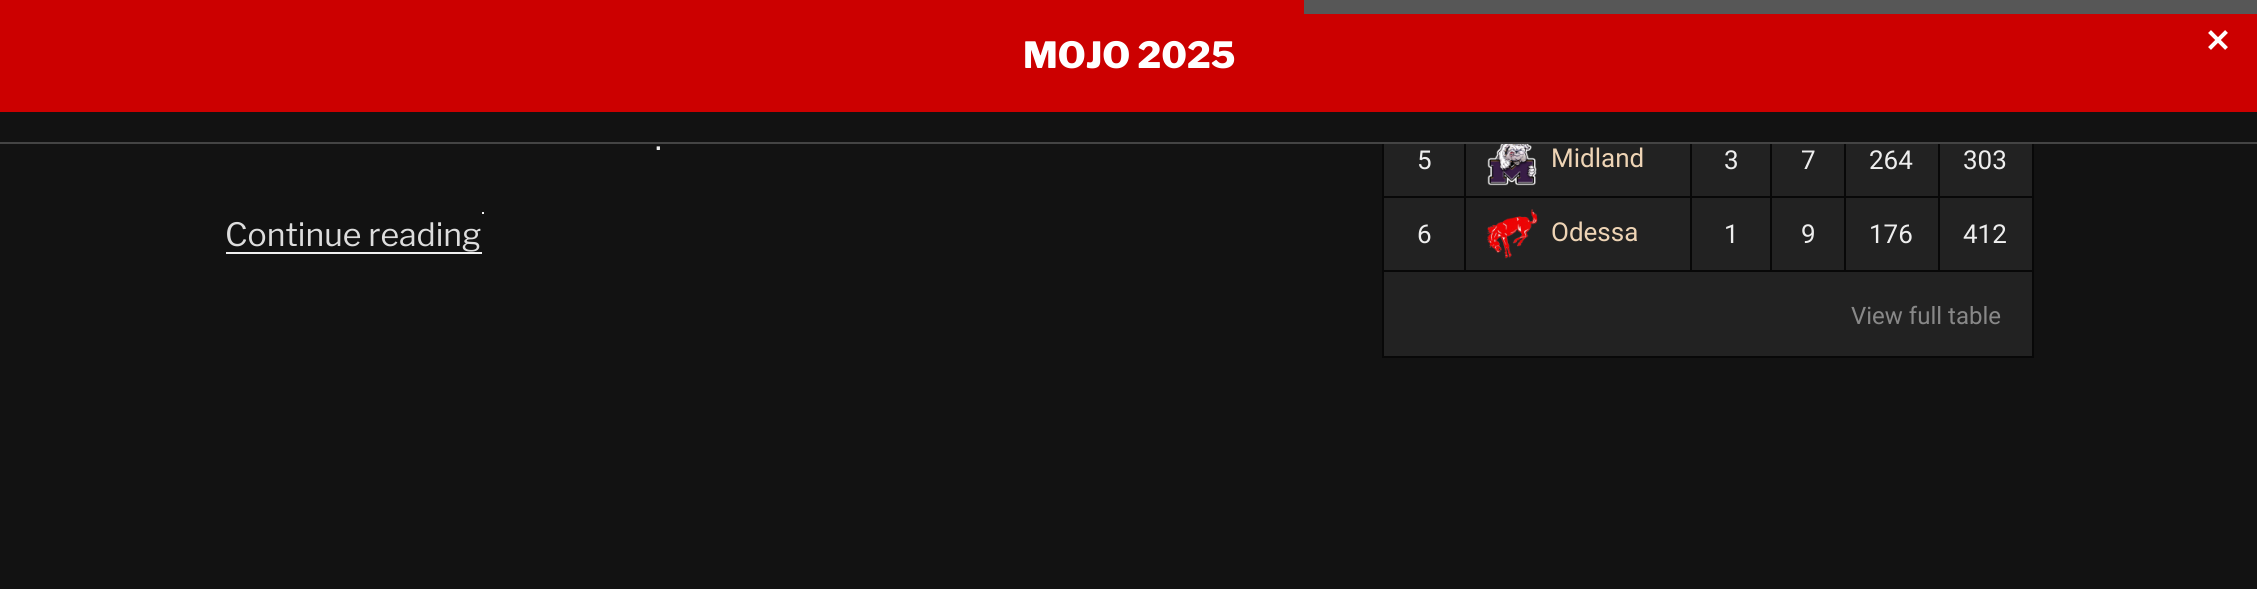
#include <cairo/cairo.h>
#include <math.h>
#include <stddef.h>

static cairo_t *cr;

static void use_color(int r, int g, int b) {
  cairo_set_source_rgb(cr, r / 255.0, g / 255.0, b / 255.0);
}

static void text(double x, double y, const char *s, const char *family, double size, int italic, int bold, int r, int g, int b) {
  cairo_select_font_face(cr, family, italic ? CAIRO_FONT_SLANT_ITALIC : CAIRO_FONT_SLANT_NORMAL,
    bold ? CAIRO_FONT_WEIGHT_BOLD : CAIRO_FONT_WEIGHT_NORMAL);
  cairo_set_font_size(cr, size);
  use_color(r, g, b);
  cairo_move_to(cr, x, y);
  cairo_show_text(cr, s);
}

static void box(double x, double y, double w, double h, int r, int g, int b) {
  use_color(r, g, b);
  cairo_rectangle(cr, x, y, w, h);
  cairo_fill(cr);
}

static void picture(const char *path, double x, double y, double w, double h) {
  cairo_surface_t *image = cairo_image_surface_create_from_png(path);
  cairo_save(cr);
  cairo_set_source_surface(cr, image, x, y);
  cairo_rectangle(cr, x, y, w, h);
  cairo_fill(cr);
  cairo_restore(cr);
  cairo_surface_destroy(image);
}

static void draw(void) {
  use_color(18, 18, 18);
  cairo_paint(cr);
  box(1304, 0, 953, 14, 87, 87, 87);
  box(0, 0, 1304, 14, 204, 0, 0);
  box(0, 14, 2257, 98, 204, 0, 0);
  picture("img_01.png", 2208, 30, 20, 20);
  box(0, 142, 2257, 2, 68, 68, 68);
  box(226, 252, 256, 2, 240, 240, 240);
  box(482, 212, 2, 2, 240, 240, 240);
  box(1384, 144, 648, 126, 34, 34, 34);
  box(2032, 144, 2, 214, 8, 8, 8);
  box(1382, 270, 652, 2, 8, 8, 8);
  box(1382, 144, 2, 128, 8, 8, 8);
  box(1938, 196, 96, 2, 8, 8, 8);
  box(1938, 196, 2, 76, 8, 8, 8);
  box(1844, 196, 96, 2, 8, 8, 8);
  box(1844, 196, 2, 76, 8, 8, 8);
  box(1770, 196, 76, 2, 8, 8, 8);
  box(1770, 196, 2, 76, 8, 8, 8);
  box(1690, 196, 82, 2, 8, 8, 8);
  box(1690, 196, 2, 76, 8, 8, 8);
  box(1464, 196, 228, 2, 8, 8, 8);
  box(1464, 196, 2, 76, 8, 8, 8);
  box(1382, 196, 84, 2, 8, 8, 8);
  box(1464, 144, 2, 54, 8, 8, 8);
  picture("img_02.png", 1487, 144, 50, 42);
  box(1690, 144, 2, 54, 8, 8, 8);
  box(1770, 144, 2, 54, 8, 8, 8);
  box(1844, 144, 2, 54, 8, 8, 8);
  box(1938, 144, 2, 54, 8, 8, 8);
  picture("img_03.png", 1487, 209, 51, 50);
  box(1384, 272, 648, 84, 34, 34, 34);
  box(1382, 356, 652, 2, 8, 8, 8);
  box(1382, 272, 2, 86, 8, 8, 8);
  text(1023, 68, "MOJO 2025", "Libre Franklin ExtraBold", 36, 0, 0, 255, 255, 255);
  text(655, 150, ".", "Libre Franklin", 32, 0, 0, 238, 238, 238);
  text(225, 246, "Continue reading", "Libre Franklin", 32, 0, 0, 221, 221, 221);
  text(1417, 169, "5", "Roboto", 26, 0, 0, 238, 238, 238);
  text(1551, 167, "Midland", "Roboto", 26, 0, 0, 238, 212, 181);
  text(1724, 169, "3", "Roboto", 26, 0, 0, 238, 238, 238);
  text(1801, 169, "7", "Roboto", 26, 0, 0, 238, 238, 238);
  text(1869, 169, "264", "Roboto", 26, 0, 0, 238, 238, 238);
  text(1963, 169, "303", "Roboto", 26, 0, 0, 238, 238, 238);
  text(1417, 243, "6", "Roboto", 26, 0, 0, 238, 238, 238);
  text(1551, 241, "Odessa", "Roboto", 26, 0, 0, 238, 212, 181);
  text(1724, 243, "1", "Roboto", 26, 0, 0, 238, 238, 238);
  text(1801, 243, "9", "Roboto", 26, 0, 0, 238, 238, 238);
  text(1869, 243, "176", "Roboto", 26, 0, 0, 238, 238, 238);
  text(1963, 243, "412", "Roboto", 26, 0, 0, 238, 238, 238);
  text(1851, 324, "View full table", "Roboto", 24, 0, 0, 136, 136, 136);
}

int main(void) {
  cairo_surface_t *surface = cairo_image_surface_create(CAIRO_FORMAT_RGB24, 2257, 589);
  cr = cairo_create(surface);
  cairo_font_options_t *options = cairo_font_options_create();
  cairo_font_options_set_hint_metrics(options, CAIRO_HINT_METRICS_OFF);
  cairo_font_options_set_hint_style(options, CAIRO_HINT_STYLE_NONE);
  cairo_set_font_options(cr, options);
  cairo_set_miter_limit(cr, 4);
  draw();
  cairo_surface_write_to_png(surface, "out.png");
  cairo_font_options_destroy(options);
  cairo_destroy(cr);
  cairo_surface_destroy(surface);
  return 0;
}
